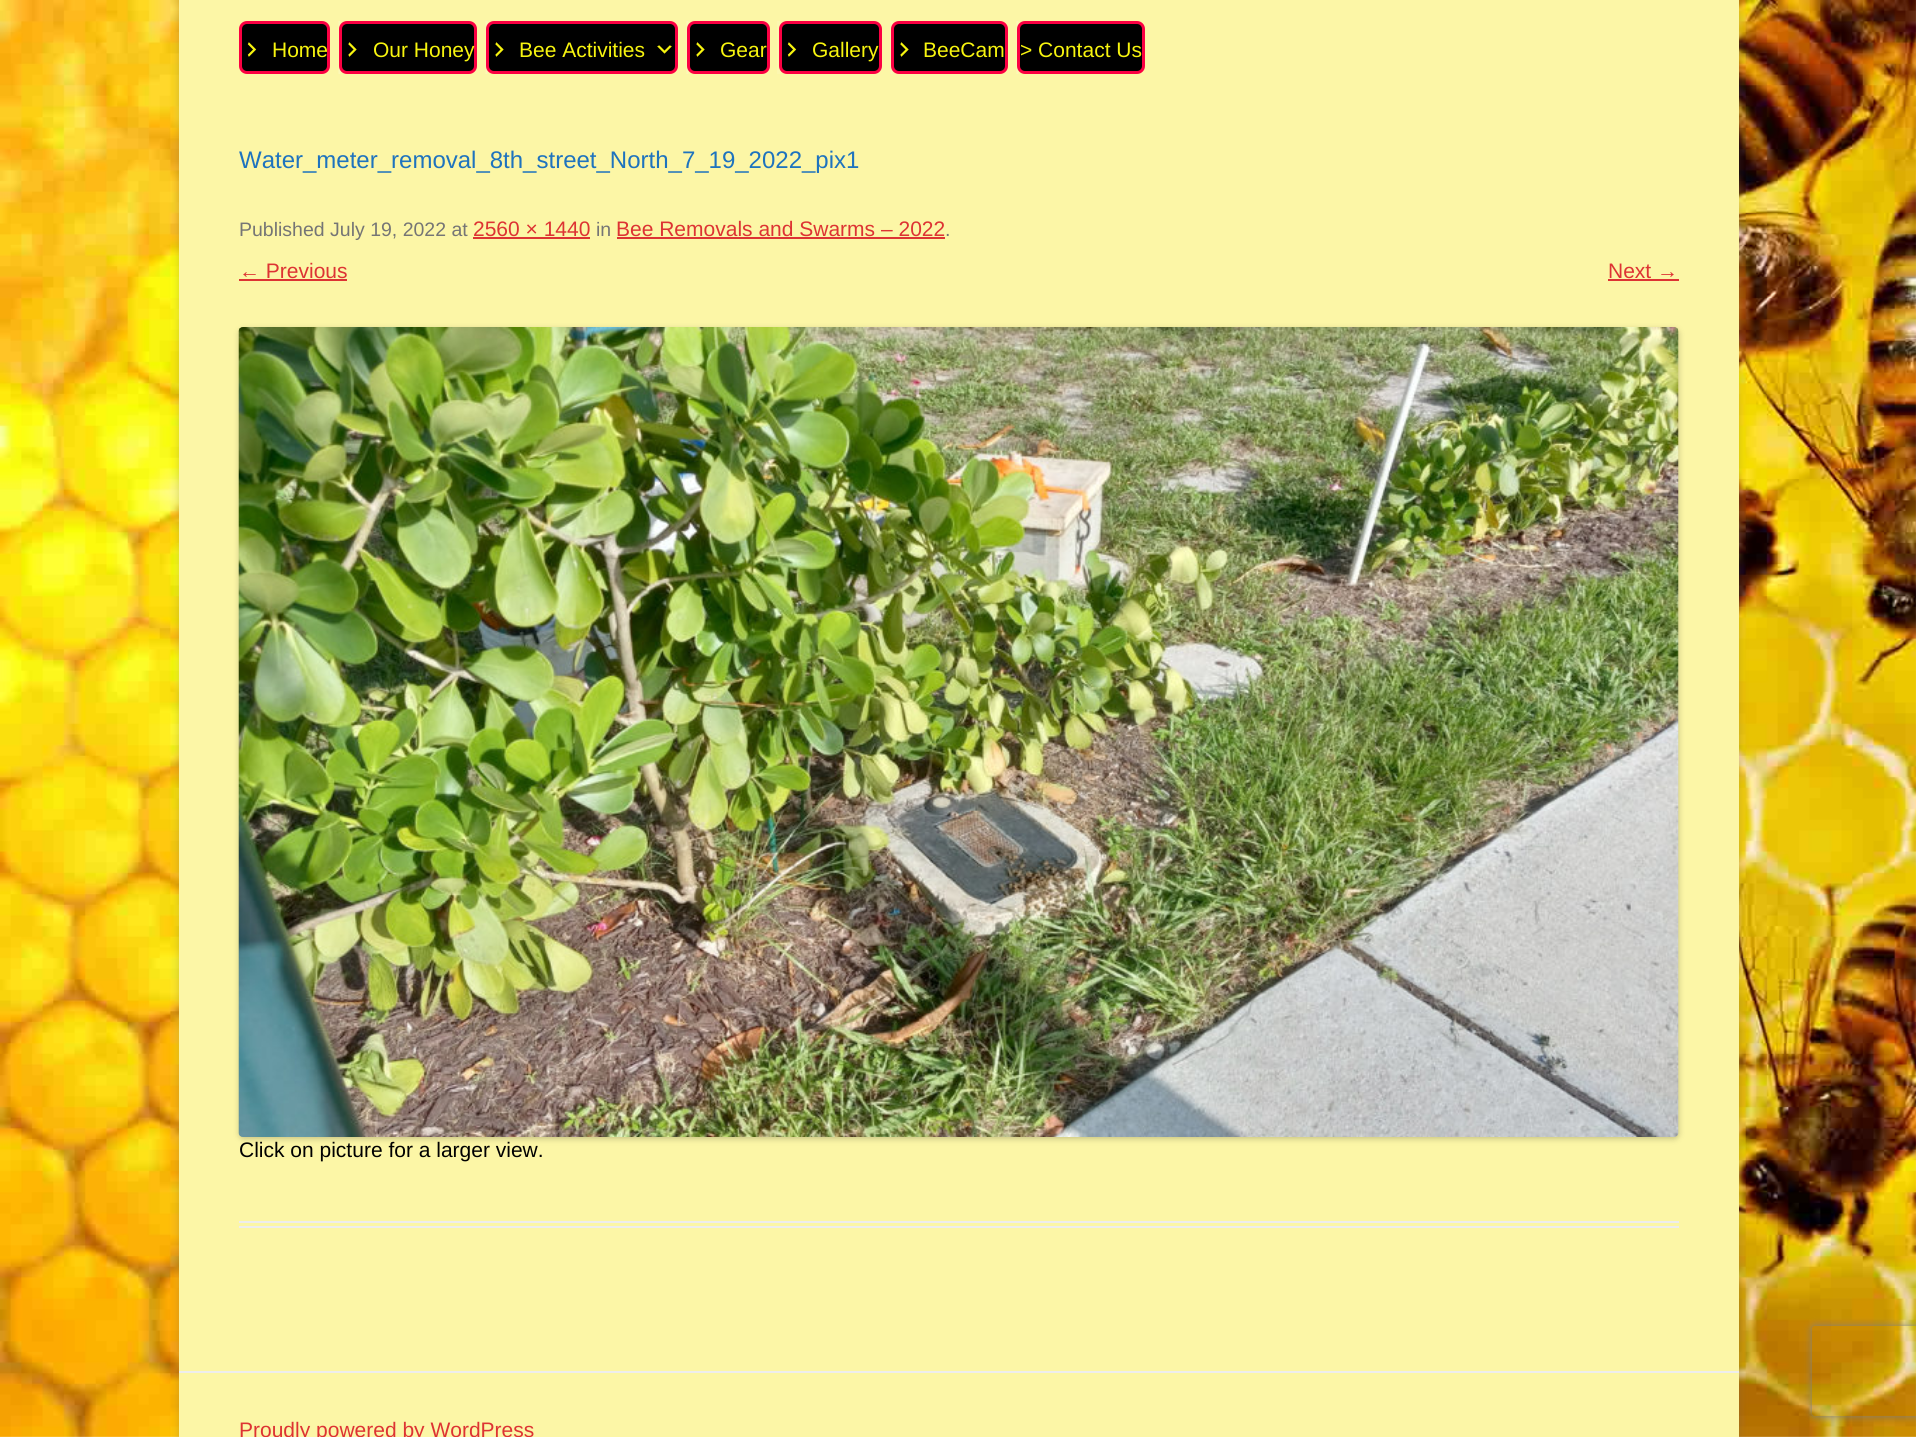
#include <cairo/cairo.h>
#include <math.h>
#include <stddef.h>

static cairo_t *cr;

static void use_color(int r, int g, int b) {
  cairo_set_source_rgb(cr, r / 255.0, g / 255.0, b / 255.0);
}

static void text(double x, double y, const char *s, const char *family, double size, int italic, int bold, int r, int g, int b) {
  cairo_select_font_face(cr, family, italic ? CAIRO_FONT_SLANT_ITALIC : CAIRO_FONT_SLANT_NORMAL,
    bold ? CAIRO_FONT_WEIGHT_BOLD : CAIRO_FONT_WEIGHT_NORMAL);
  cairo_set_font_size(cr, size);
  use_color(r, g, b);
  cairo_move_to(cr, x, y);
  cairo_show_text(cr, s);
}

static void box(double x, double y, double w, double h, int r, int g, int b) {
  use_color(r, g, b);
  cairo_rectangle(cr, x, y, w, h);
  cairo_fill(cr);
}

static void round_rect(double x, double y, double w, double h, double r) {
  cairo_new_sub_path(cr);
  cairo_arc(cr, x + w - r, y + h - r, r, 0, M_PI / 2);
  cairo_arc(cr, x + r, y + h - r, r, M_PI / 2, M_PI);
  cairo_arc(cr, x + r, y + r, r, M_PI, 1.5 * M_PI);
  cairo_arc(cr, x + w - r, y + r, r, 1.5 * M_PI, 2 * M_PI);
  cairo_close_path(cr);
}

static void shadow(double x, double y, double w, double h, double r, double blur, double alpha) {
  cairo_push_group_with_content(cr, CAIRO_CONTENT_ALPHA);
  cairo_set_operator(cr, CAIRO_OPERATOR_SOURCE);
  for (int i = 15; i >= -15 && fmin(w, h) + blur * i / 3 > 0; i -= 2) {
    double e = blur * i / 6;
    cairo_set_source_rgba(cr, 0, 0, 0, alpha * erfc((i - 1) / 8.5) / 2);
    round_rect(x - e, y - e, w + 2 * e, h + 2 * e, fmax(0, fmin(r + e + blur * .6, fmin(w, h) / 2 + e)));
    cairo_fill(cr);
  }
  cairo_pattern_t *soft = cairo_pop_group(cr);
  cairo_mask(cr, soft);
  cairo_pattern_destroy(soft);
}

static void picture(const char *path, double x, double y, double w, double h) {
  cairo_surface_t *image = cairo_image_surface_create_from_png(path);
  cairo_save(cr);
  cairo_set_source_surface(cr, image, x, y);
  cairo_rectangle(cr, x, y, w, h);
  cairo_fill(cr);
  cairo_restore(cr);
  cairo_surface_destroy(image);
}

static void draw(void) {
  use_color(255, 255, 255);
  cairo_paint(cr);
  picture("img_01.png", 0, 0, 1916, 1437);
  use_color(100, 100, 100);
  shadow(179, -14, 1560, 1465, 0, 4.5, 0.3);
  box(179, 0, 1560, 1437, 252, 246, 166);
  use_color(0, 0, 0);
  round_rect(240.5, 22.5, 88, 50, 6.5);
  cairo_fill_preserve(cr);
  use_color(251, 0, 66);
  cairo_set_line_width(cr, 3);
  cairo_stroke(cr);
  picture("img_02.png", 247, 42, 10, 15);
  box(339, 21, 2, 53, 252, 247, 175);
  cairo_set_source_rgba(cr, 1, 1, 1, 0.1);
  cairo_rectangle(cr, 338, 21, 2, 53);
  cairo_fill(cr);
  use_color(0, 0, 0);
  round_rect(340.5, 22.5, 135, 50, 6.5);
  cairo_fill_preserve(cr);
  use_color(251, 0, 66);
  cairo_stroke(cr);
  picture("img_03.png", 348, 42, 9, 15);
  box(486, 21, 2, 53, 252, 247, 175);
  cairo_set_source_rgba(cr, 1, 1, 1, 0.1);
  cairo_rectangle(cr, 485, 21, 2, 53);
  cairo_fill(cr);
  use_color(0, 0, 0);
  round_rect(487.5, 22.5, 189, 50, 6.5);
  cairo_fill_preserve(cr);
  use_color(251, 0, 66);
  cairo_stroke(cr);
  picture("img_03.png", 495, 42, 9, 15);
  picture("img_04.png", 657, 45, 15, 9);
  box(687, 21, 2, 53, 252, 247, 175);
  cairo_set_source_rgba(cr, 1, 1, 1, 0.1);
  cairo_rectangle(cr, 686, 21, 2, 53);
  cairo_fill(cr);
  use_color(0, 0, 0);
  round_rect(688.5, 22.5, 80, 50, 6.5);
  cairo_fill_preserve(cr);
  use_color(251, 0, 66);
  cairo_stroke(cr);
  picture("img_03.png", 696, 42, 9, 15);
  box(777, 21, 4, 53, 252, 247, 175);
  use_color(0, 0, 0);
  round_rect(780.5, 22.5, 100, 50, 6.5);
  cairo_fill_preserve(cr);
  use_color(251, 0, 66);
  cairo_stroke(cr);
  picture("img_02.png", 787, 42, 10, 15);
  box(891, 21, 2, 53, 252, 247, 175);
  cairo_set_source_rgba(cr, 1, 1, 1, 0.1);
  cairo_rectangle(cr, 890, 21, 2, 53);
  cairo_fill(cr);
  use_color(0, 0, 0);
  round_rect(892.5, 22.5, 114, 50, 6.5);
  cairo_fill_preserve(cr);
  use_color(251, 0, 66);
  cairo_stroke(cr);
  picture("img_03.png", 900, 42, 9, 15);
  box(1017, 21, 2, 53, 252, 247, 175);
  cairo_set_source_rgba(cr, 1, 1, 1, 0.1);
  cairo_rectangle(cr, 1016, 21, 2, 53);
  cairo_fill(cr);
  use_color(0, 0, 0);
  round_rect(1018.5, 22.5, 125, 50, 6.5);
  cairo_fill_preserve(cr);
  use_color(251, 0, 66);
  cairo_stroke(cr);
  box(239, 1221, 1440, 2, 237, 237, 237);
  box(239, 1226, 1440, 2, 237, 237, 237);
  box(473, 237, 117, 2, 221, 51, 51);
  box(617, 237, 328, 2, 221, 51, 51);
  box(239, 279, 108, 2, 221, 51, 51);
  box(1608, 279, 71, 2, 221, 51, 51);
  use_color(0, 0, 0);
  shadow(239, 329, 1440, 810, 5, 3, 0.2);
  picture("img_05.png", 238, 327, 1441, 810);
  box(179, 1371, 1560, 2, 237, 237, 237);
  cairo_save(cr);
  cairo_set_fill_rule(cr, CAIRO_FILL_RULE_EVEN_ODD);
  cairo_new_path(cr);
  cairo_move_to(cr, 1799, 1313);
  cairo_line_to(cr, 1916, 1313);
  cairo_line_to(cr, 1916, 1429);
  cairo_line_to(cr, 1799, 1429);
  cairo_close_path(cr);
  cairo_move_to(cr, 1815, 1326);
  cairo_line_to(cr, 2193, 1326);
  cairo_curve_to(cr, 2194.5, 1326, 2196, 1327.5, 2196, 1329);
  cairo_line_to(cr, 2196, 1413);
  cairo_curve_to(cr, 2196, 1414.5, 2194.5, 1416, 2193, 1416);
  cairo_line_to(cr, 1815, 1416);
  cairo_curve_to(cr, 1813.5, 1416, 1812, 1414.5, 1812, 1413);
  cairo_line_to(cr, 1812, 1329);
  cairo_curve_to(cr, 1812, 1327.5, 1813.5, 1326, 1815, 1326);
  cairo_close_path(cr);
  cairo_clip(cr);
  use_color(128, 128, 128);
  shadow(1812, 1326, 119, 90, 3, 4, 1);
  cairo_restore(cr);
  text(272, 57, "Home", "Liberation Sans", 21, 0, 0, 247, 244, 15);
  text(373, 57, "Our Honey", "Liberation Sans", 21, 0, 0, 247, 244, 15);
  text(519, 57, "Bee Activities", "Liberation Sans", 21, 0, 0, 247, 244, 15);
  text(720, 57, "Gear", "Liberation Sans", 21, 0, 0, 247, 244, 15);
  text(812, 57, "Gallery", "Liberation Sans", 21, 0, 0, 247, 244, 15);
  text(923, 57, "BeeCam", "Liberation Sans", 21, 0, 0, 247, 244, 15);
  text(1020, 57, "> Contact Us", "Liberation Sans", 21, 0, 0, 247, 244, 15);
  text(239, 168, "Water_meter_removal_8th_street_North_7_19_2022_pix1", "Liberation Sans", 24, 0, 0, 30, 115, 190);
  text(239, 236, "Published July 19, 2022 at", "Liberation Sans", 19.5, 0, 0, 117, 117, 117);
  text(473, 236, "2560 × 1440", "Liberation Sans", 21, 0, 0, 221, 51, 51);
  text(596, 236, "in", "Liberation Sans", 19.5, 0, 0, 117, 117, 117);
  text(616, 236, "Bee Removals and Swarms – 2022", "Liberation Sans", 21, 0, 0, 221, 51, 51);
  text(945, 236, ".", "Liberation Sans", 19.5, 0, 0, 117, 117, 117);
  text(239, 278, "← Previous", "Liberation Sans", 21, 0, 0, 221, 51, 51);
  text(1608, 278, "Next →", "Liberation Sans", 21, 0, 0, 221, 51, 51);
  text(239, 1157, "Click on picture for a larger view.", "Liberation Sans", 21, 0, 0, 0, 0, 0);
  text(239, 1437, "Proudly powered by WordPress", "Liberation Sans", 21, 0, 0, 221, 51, 51);
}

int main(void) {
  cairo_surface_t *surface = cairo_image_surface_create(CAIRO_FORMAT_RGB24, 1916, 1437);
  cr = cairo_create(surface);
  cairo_font_options_t *options = cairo_font_options_create();
  cairo_font_options_set_hint_metrics(options, CAIRO_HINT_METRICS_OFF);
  cairo_font_options_set_hint_style(options, CAIRO_HINT_STYLE_NONE);
  cairo_set_font_options(cr, options);
  cairo_set_miter_limit(cr, 4);
  draw();
  cairo_surface_write_to_png(surface, "out.png");
  cairo_font_options_destroy(options);
  cairo_destroy(cr);
  cairo_surface_destroy(surface);
  return 0;
}
